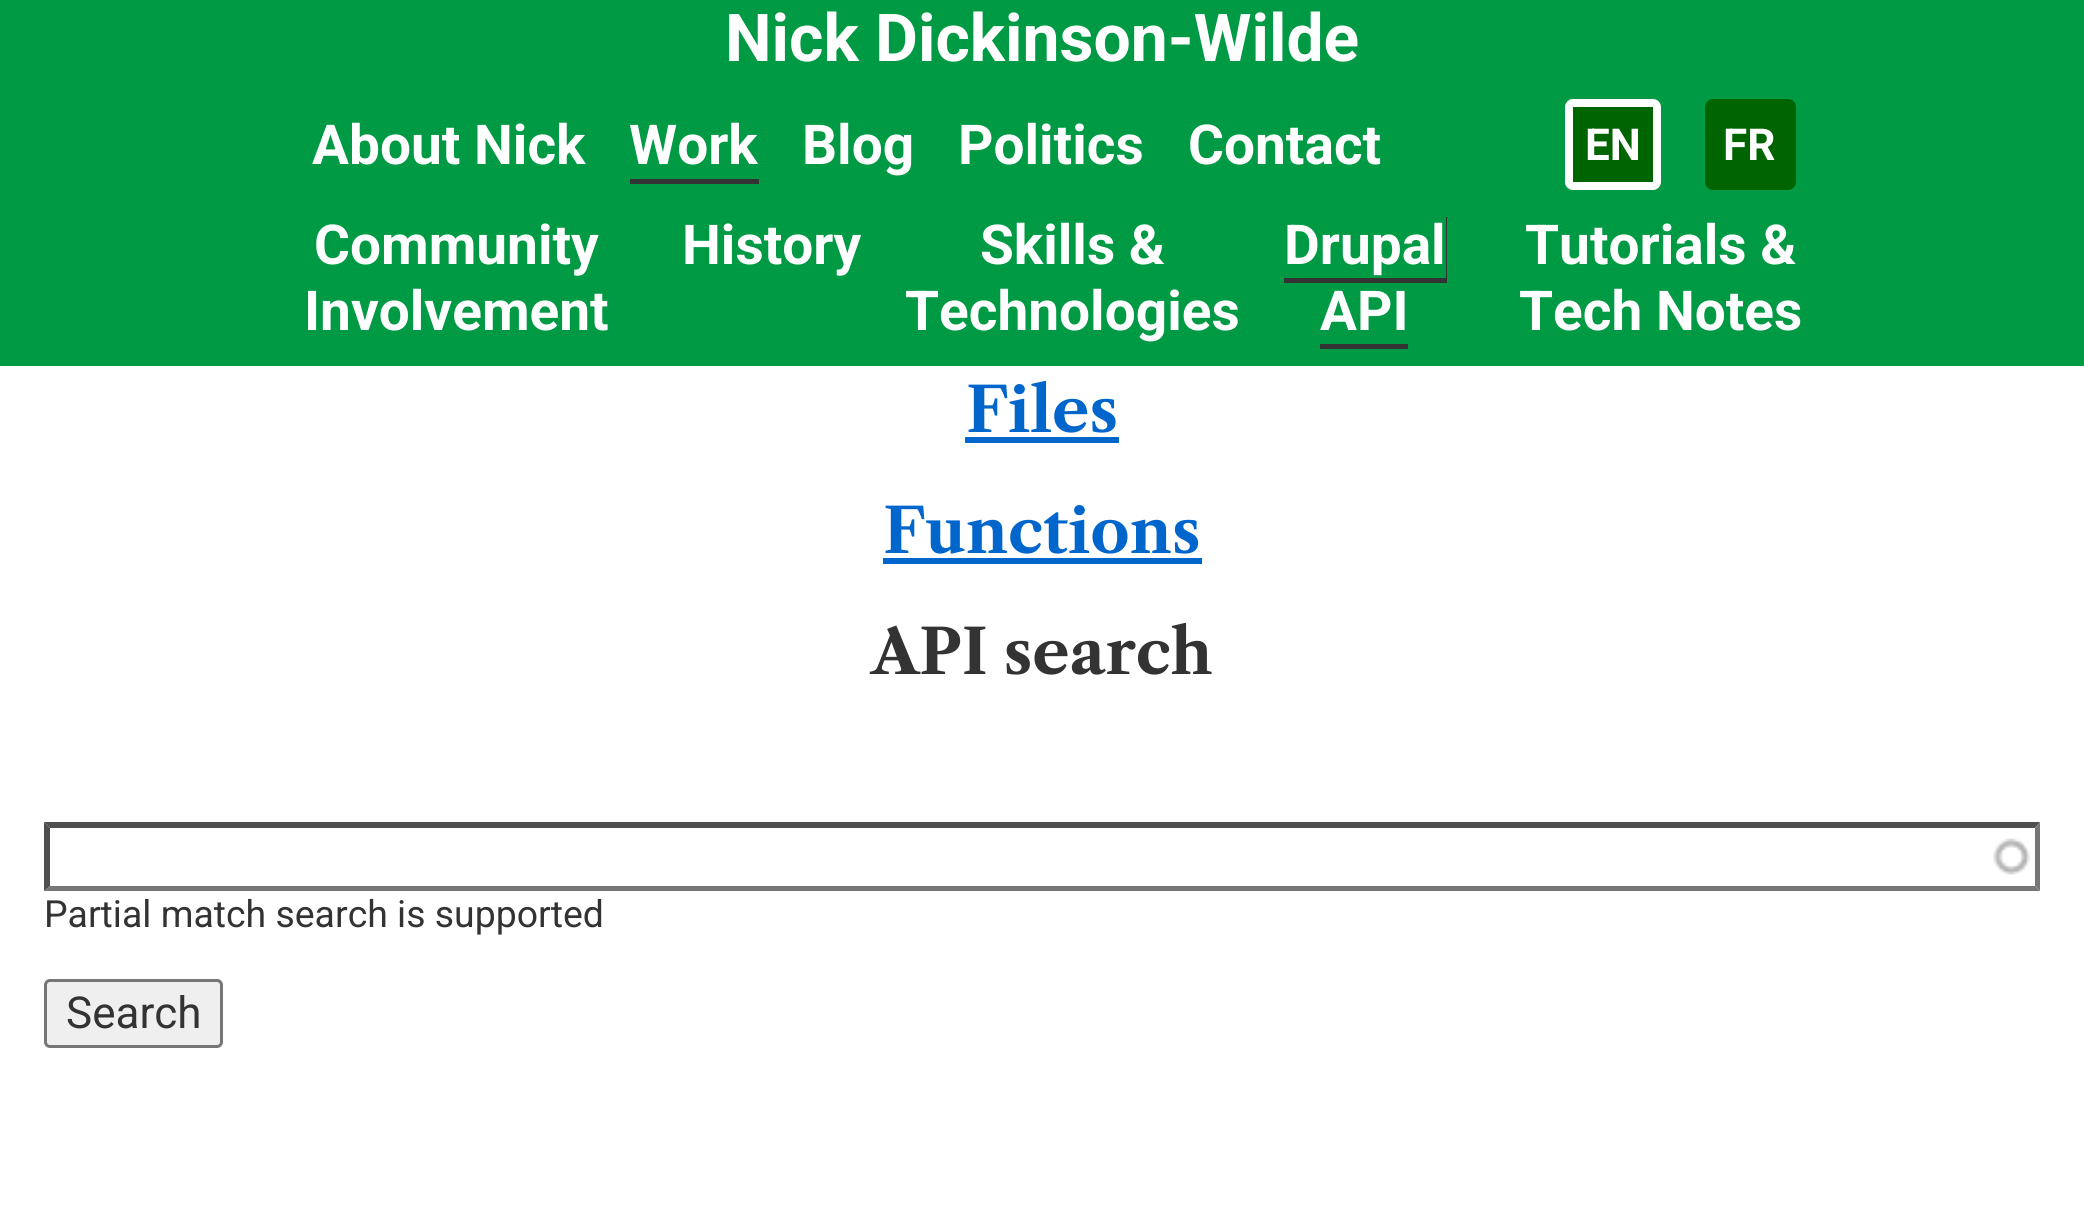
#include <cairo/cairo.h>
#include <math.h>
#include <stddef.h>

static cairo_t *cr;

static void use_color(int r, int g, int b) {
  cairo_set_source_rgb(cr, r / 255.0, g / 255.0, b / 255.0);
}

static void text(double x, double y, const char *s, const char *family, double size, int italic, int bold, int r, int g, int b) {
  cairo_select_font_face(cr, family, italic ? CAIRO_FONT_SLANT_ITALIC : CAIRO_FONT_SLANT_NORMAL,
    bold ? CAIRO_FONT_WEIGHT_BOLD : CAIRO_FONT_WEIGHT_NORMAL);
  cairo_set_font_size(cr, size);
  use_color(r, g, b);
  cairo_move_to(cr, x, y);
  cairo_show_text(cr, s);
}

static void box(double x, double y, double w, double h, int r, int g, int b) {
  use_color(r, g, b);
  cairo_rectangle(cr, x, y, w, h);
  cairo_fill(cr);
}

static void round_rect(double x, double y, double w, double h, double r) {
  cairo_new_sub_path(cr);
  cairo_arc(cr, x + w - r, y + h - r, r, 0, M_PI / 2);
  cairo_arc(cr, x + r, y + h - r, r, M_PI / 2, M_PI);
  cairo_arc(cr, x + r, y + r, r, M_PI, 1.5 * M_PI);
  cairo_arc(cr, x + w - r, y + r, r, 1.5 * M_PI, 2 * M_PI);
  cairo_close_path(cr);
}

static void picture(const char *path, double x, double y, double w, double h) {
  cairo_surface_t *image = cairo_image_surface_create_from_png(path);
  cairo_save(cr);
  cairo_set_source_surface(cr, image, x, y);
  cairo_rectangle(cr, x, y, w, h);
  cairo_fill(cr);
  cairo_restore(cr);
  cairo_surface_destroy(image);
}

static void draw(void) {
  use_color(255, 255, 255);
  cairo_paint(cr);
  box(0, 0, 2084, 366, 0, 154, 68);
  box(630, 179, 129, 5, 51, 51, 51);
  use_color(0, 100, 0);
  round_rect(1569, 103, 88, 83, 4);
  cairo_fill_preserve(cr);
  use_color(255, 255, 255);
  cairo_set_line_width(cr, 8);
  cairo_stroke(cr);
  use_color(0, 100, 0);
  round_rect(1709, 103, 83, 83, 4);
  cairo_fill_preserve(cr);
  cairo_stroke(cr);
  use_color(51, 51, 51);
  cairo_new_path(cr);
  cairo_move_to(cr, 1284, 217);
  cairo_line_to(cr, 1284, 283);
  cairo_line_to(cr, 1447, 283);
  cairo_line_to(cr, 1447, 217);
  cairo_line_to(cr, 1446, 217);
  cairo_line_to(cr, 1446, 278);
  cairo_line_to(cr, 1284, 278);
  cairo_close_path(cr);
  cairo_fill(cr);
  box(1320, 344, 88, 5, 51, 51, 51);
  box(965, 437, 154, 6, 0, 102, 204);
  box(883, 558, 319, 6, 0, 102, 204);
  picture("img_01.png", 1993, 838, 38, 37);
  use_color(79, 79, 79);
  cairo_new_path(cr);
  cairo_move_to(cr, 44, 822);
  cairo_line_to(cr, 2040, 822);
  cairo_line_to(cr, 2035, 828);
  cairo_line_to(cr, 50, 828);
  cairo_close_path(cr);
  cairo_fill(cr);
  use_color(118, 118, 118);
  cairo_new_path(cr);
  cairo_move_to(cr, 2040, 822);
  cairo_line_to(cr, 2040, 891);
  cairo_line_to(cr, 2035, 886);
  cairo_line_to(cr, 2035, 828);
  cairo_close_path(cr);
  cairo_fill(cr);
  cairo_new_path(cr);
  cairo_move_to(cr, 2040, 891);
  cairo_line_to(cr, 44, 891);
  cairo_line_to(cr, 50, 886);
  cairo_line_to(cr, 2035, 886);
  cairo_close_path(cr);
  cairo_fill(cr);
  use_color(79, 79, 79);
  cairo_new_path(cr);
  cairo_move_to(cr, 44, 891);
  cairo_line_to(cr, 44, 822);
  cairo_line_to(cr, 50, 828);
  cairo_line_to(cr, 50, 886);
  cairo_close_path(cr);
  cairo_fill(cr);
  use_color(239, 239, 239);
  round_rect(45.5, 980.5, 176, 66, 4.5);
  cairo_fill_preserve(cr);
  use_color(118, 118, 118);
  cairo_set_line_width(cr, 3);
  cairo_stroke(cr);
  text(725, 61, "Nick Dickinson-Wilde", "Roboto", 66, 0, 1, 255, 255, 255);
  text(312, 164, "About Nick", "Roboto", 55, 0, 1, 255, 255, 255);
  text(629, 164, "Work", "Roboto", 55, 0, 1, 255, 255, 255);
  text(802, 164, "Blog", "Roboto", 55, 0, 1, 255, 255, 255);
  text(958, 164, "Politics", "Roboto", 55, 0, 1, 255, 255, 255);
  text(1188, 164, "Contact", "Roboto", 55, 0, 1, 255, 255, 255);
  text(1585, 160, "EN", "Roboto", 44, 0, 1, 255, 255, 255);
  text(1723, 160, "FR", "Roboto", 44, 0, 1, 255, 255, 255);
  text(314, 264, "Community", "Roboto", 55, 0, 1, 255, 255, 255);
  text(304, 330, "Involvement", "Roboto", 55, 0, 1, 255, 255, 255);
  text(682, 264, "History", "Roboto", 55, 0, 1, 255, 255, 255);
  text(980, 264, "Skills &", "Roboto", 55, 0, 1, 255, 255, 255);
  text(905, 330, "Technologies", "Roboto", 55, 0, 1, 255, 255, 255);
  text(1284, 264, "Drupal", "Roboto", 55, 0, 1, 255, 255, 255);
  text(1320, 330, "API", "Roboto", 55, 0, 1, 255, 255, 255);
  text(1525, 264, "Tutorials &", "Roboto", 55, 0, 1, 255, 255, 255);
  text(1519, 330, "Tech Notes", "Roboto", 55, 0, 1, 255, 255, 255);
  text(966, 432, "Files", "Libre Caslon Text", 61.5, 0, 1, 0, 102, 204);
  text(883, 553, "Functions", "Libre Caslon Text", 61.5, 0, 1, 0, 102, 204);
  text(871, 674, "API search", "Libre Caslon Text", 61.5, 0, 1, 51, 51, 51);
  text(44, 927, "Partial match search is supported", "Roboto", 37.4, 0, 0, 51, 51, 51);
  text(66, 1028, "Search", "Roboto", 44, 0, 0, 51, 51, 51);
}

int main(void) {
  cairo_surface_t *surface = cairo_image_surface_create(CAIRO_FORMAT_RGB24, 2084, 1210);
  cr = cairo_create(surface);
  cairo_font_options_t *options = cairo_font_options_create();
  cairo_font_options_set_hint_metrics(options, CAIRO_HINT_METRICS_OFF);
  cairo_font_options_set_hint_style(options, CAIRO_HINT_STYLE_NONE);
  cairo_set_font_options(cr, options);
  cairo_set_miter_limit(cr, 4);
  draw();
  cairo_surface_write_to_png(surface, "out.png");
  cairo_font_options_destroy(options);
  cairo_destroy(cr);
  cairo_surface_destroy(surface);
  return 0;
}
